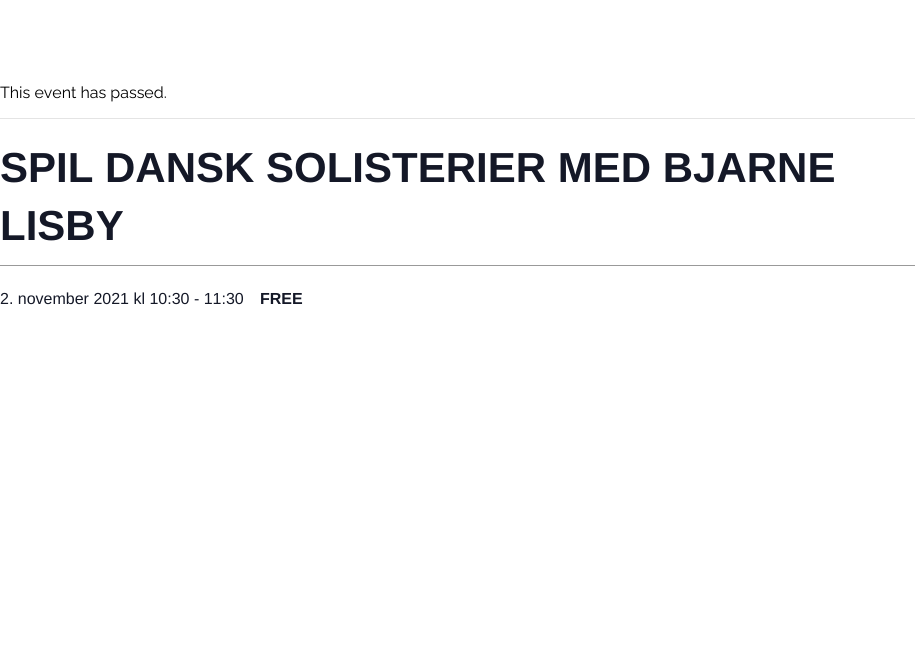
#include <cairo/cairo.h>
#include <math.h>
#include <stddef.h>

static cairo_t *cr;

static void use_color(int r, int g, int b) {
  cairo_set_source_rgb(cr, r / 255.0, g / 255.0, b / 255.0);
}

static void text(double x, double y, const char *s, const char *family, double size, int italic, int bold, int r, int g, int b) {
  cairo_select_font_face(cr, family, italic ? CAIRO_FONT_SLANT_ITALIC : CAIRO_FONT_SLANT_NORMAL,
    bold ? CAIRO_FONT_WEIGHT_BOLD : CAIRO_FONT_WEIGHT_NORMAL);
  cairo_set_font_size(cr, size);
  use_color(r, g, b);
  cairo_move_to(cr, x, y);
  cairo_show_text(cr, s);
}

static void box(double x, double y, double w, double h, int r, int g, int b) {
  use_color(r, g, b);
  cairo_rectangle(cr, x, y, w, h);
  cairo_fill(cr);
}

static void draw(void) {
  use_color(255, 255, 255);
  cairo_paint(cr);
  box(0, 118, 915, 1, 228, 228, 228);
  box(0, 265, 915, 1, 153, 153, 153);
  text(0, 98, "This event has passed.", "Raleway", 16, 0, 0, 0, 0, 0);
  text(0, 182, "SPIL DANSK SOLISTERIER MED BJARNE", "Liberation Sans", 42, 0, 1, 20, 24, 39);
  text(0, 240, "LISBY", "Liberation Sans", 42, 0, 1, 20, 24, 39);
  text(0, 304, "2. november 2021 kl 10:30 - 11:30", "Liberation Sans", 16, 0, 0, 20, 24, 39);
  text(260, 304, "FREE", "Liberation Sans", 16, 0, 1, 20, 24, 39);
}

int main(void) {
  cairo_surface_t *surface = cairo_image_surface_create(CAIRO_FORMAT_RGB24, 915, 661);
  cr = cairo_create(surface);
  cairo_font_options_t *options = cairo_font_options_create();
  cairo_font_options_set_hint_metrics(options, CAIRO_HINT_METRICS_OFF);
  cairo_font_options_set_hint_style(options, CAIRO_HINT_STYLE_NONE);
  cairo_set_font_options(cr, options);
  cairo_set_miter_limit(cr, 4);
  draw();
  cairo_surface_write_to_png(surface, "out.png");
  cairo_font_options_destroy(options);
  cairo_destroy(cr);
  cairo_surface_destroy(surface);
  return 0;
}
